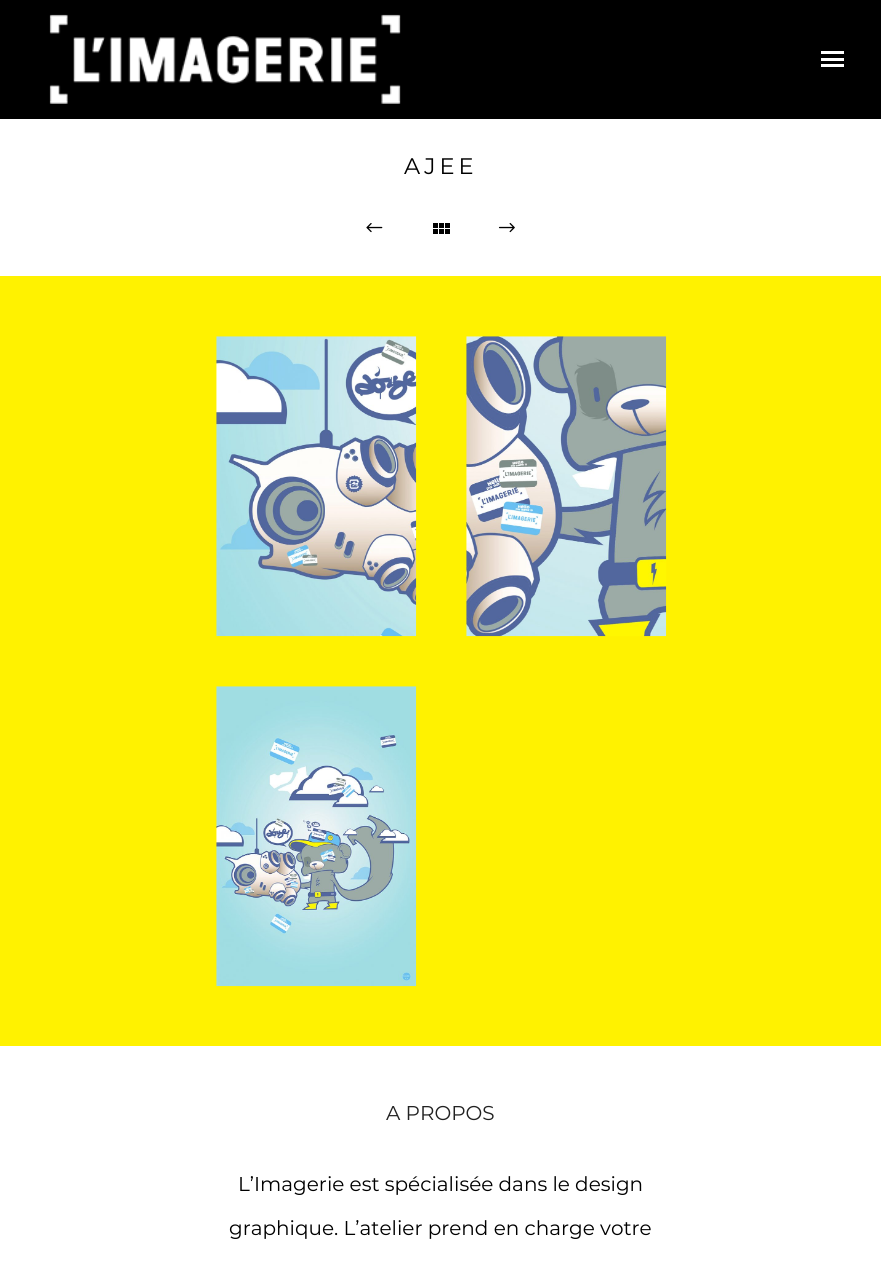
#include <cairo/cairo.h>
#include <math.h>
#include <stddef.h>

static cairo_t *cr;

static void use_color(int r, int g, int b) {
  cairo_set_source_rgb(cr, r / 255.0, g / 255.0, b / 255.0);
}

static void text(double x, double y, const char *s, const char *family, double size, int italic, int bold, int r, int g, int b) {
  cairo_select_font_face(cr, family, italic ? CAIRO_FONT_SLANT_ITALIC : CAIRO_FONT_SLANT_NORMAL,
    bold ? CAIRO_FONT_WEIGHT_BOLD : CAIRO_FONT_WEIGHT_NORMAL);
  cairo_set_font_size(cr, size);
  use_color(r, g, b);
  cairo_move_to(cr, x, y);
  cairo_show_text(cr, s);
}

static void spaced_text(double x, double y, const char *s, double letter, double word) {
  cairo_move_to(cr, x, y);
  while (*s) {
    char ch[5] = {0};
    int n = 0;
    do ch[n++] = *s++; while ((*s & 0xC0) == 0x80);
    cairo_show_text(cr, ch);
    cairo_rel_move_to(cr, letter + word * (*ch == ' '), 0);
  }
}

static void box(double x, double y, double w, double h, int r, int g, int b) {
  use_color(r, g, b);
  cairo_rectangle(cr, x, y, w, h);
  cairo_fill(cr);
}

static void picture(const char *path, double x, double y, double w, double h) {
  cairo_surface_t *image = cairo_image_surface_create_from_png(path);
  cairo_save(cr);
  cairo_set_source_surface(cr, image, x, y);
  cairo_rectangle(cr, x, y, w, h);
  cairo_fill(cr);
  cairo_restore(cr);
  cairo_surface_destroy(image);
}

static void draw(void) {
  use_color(0, 0, 0);
  cairo_paint(cr);
  picture("img_01.png", 49, 14, 352, 90);
  box(821, 58, 23, 3, 255, 255, 255);
  box(821, 51, 23, 3, 255, 255, 255);
  box(821, 64, 23, 3, 255, 255, 255);
  box(0, 119, 881, 157, 255, 255, 255);
  picture("img_02.png", 366, 223, 17, 10);
  box(433, 223, 5, 5, 0, 0, 0);
  box(439, 223, 5, 5, 0, 0, 0);
  box(445, 223, 5, 5, 0, 0, 0);
  box(433, 229, 5, 5, 0, 0, 0);
  box(439, 229, 5, 5, 0, 0, 0);
  box(445, 229, 5, 5, 0, 0, 0);
  picture("img_03.png", 498, 222, 17, 11);
  box(0, 276, 881, 770, 255, 242, 0);
  picture("img_04.png", 216, 336, 201, 301);
  picture("img_05.png", 466, 336, 201, 301);
  picture("img_06.png", 216, 686, 201, 301);
  box(0, 1046, 881, 221, 255, 255, 255);
  cairo_select_font_face(cr, "Montserrat", CAIRO_FONT_SLANT_NORMAL, CAIRO_FONT_WEIGHT_NORMAL);
  cairo_set_font_size(cr, 22.5);
  use_color(0, 0, 0);
  spaced_text(404, 174, "AJEE", 4, 0);
  text(386, 1120, "A PROPOS", "Montserrat", 20, 0, 0, 34, 34, 34);
  text(238, 1191, "L’Imagerie est spécialisée dans le design", "Montserrat", 20, 0, 0, 0, 0, 0);
  text(229, 1235, "graphique. L’atelier prend en charge votre", "Montserrat", 20, 0, 0, 0, 0, 0);
}

int main(void) {
  cairo_surface_t *surface = cairo_image_surface_create(CAIRO_FORMAT_RGB24, 881, 1267);
  cr = cairo_create(surface);
  cairo_font_options_t *options = cairo_font_options_create();
  cairo_font_options_set_hint_metrics(options, CAIRO_HINT_METRICS_OFF);
  cairo_font_options_set_hint_style(options, CAIRO_HINT_STYLE_NONE);
  cairo_set_font_options(cr, options);
  cairo_set_miter_limit(cr, 4);
  draw();
  cairo_surface_write_to_png(surface, "out.png");
  cairo_font_options_destroy(options);
  cairo_destroy(cr);
  cairo_surface_destroy(surface);
  return 0;
}
